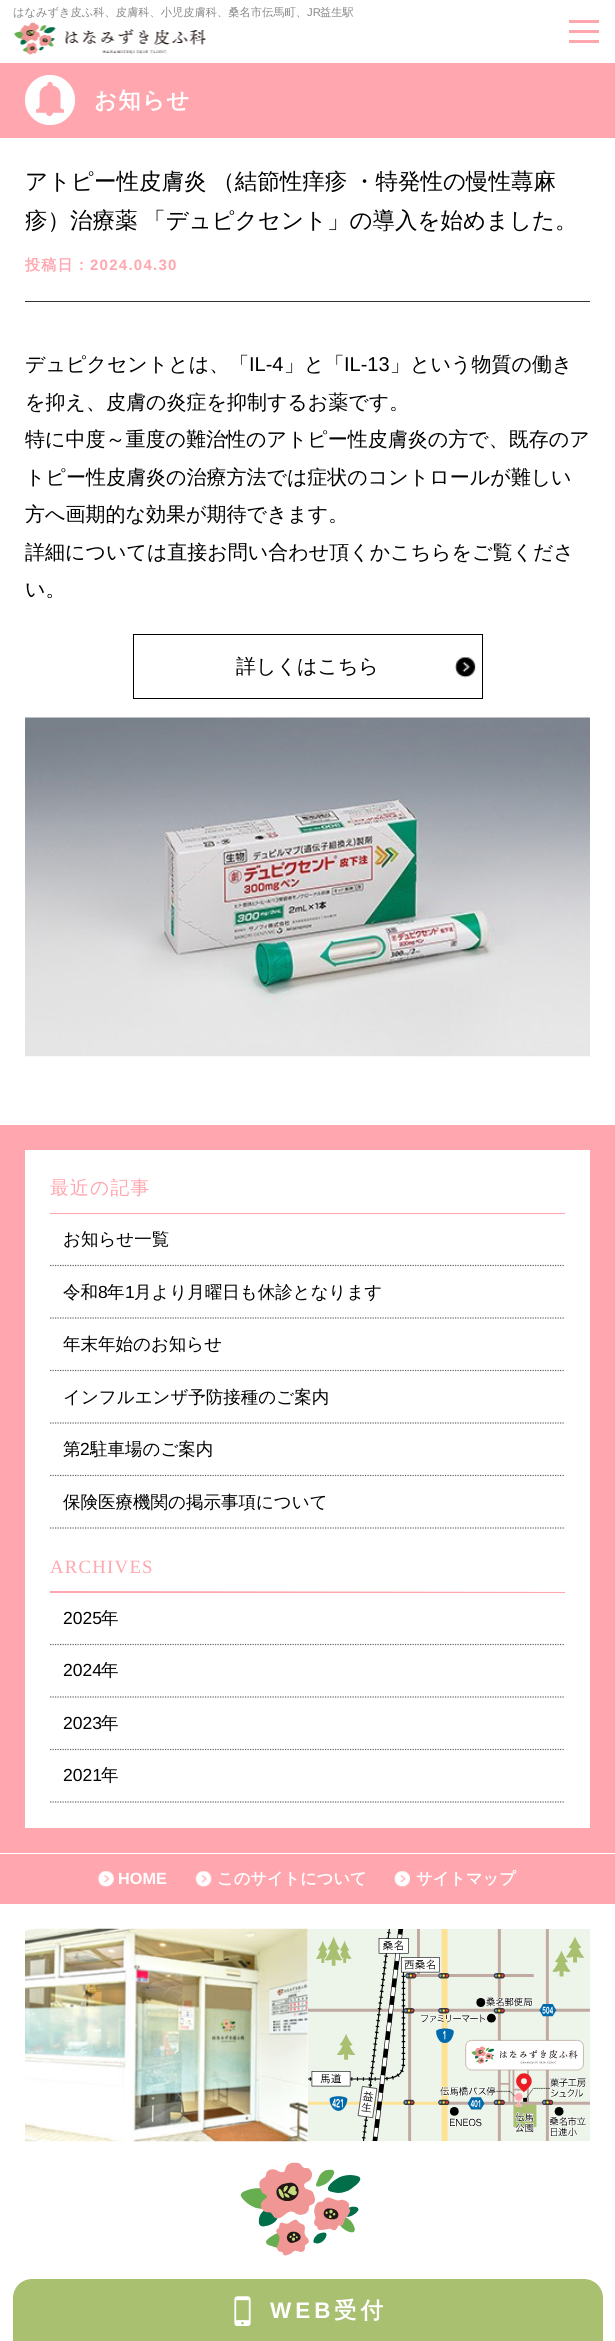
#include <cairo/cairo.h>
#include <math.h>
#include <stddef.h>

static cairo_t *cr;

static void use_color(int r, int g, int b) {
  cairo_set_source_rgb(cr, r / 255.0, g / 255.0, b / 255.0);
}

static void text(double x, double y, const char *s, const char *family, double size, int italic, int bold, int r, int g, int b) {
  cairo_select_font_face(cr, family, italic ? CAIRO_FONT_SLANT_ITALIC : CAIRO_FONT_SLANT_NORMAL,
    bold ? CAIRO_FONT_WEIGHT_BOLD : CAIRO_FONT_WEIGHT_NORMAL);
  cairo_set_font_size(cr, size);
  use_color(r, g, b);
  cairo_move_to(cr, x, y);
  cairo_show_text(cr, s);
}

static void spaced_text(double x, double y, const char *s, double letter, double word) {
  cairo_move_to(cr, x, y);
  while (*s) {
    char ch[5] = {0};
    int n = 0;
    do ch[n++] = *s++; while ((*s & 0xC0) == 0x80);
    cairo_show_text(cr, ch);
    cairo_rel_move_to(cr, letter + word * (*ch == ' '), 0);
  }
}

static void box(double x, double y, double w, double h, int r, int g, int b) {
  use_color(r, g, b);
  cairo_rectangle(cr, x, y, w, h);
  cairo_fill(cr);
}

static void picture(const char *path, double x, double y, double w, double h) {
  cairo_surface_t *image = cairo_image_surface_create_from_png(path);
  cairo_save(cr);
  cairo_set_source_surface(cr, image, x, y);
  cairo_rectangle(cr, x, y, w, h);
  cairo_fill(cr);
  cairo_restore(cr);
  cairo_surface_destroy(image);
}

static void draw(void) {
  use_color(255, 255, 255);
  cairo_paint(cr);
  picture("img_01.png", 14, 22, 192, 33);
  box(569, 20, 30, 3, 255, 166, 174);
  box(569, 30, 30, 3, 255, 166, 174);
  box(569, 40, 30, 3, 255, 166, 174);
  box(0, 63, 615, 75, 255, 166, 174);
  picture("img_02.png", 25, 75, 50, 50);
  box(25, 301, 565, 1, 51, 51, 51);
  picture("img_03.png", 455, 657, 21, 21);
  cairo_rectangle(cr, 133.5, 634.5, 349, 64);
  use_color(0, 0, 0);
  cairo_set_line_width(cr, 1);
  cairo_stroke(cr);
  picture("img_04.png", 25, 717, 565, 340);
  cairo_rectangle(cr, 12.5, 1137.5, 590, 703);
  use_color(255, 166, 174);
  cairo_set_line_width(cr, 25);
  cairo_stroke(cr);
  box(50, 1213, 515, 1, 255, 166, 174);
  cairo_new_path(cr);
  cairo_move_to(cr, 50, 1265.5);
  cairo_line_to(cr, 565, 1265.5);
  use_color(102, 102, 102);
  cairo_set_line_width(cr, 1.2);
  cairo_set_dash(cr, (double[]){1.25, 1.25}, 2, 0);
  cairo_stroke(cr);
  cairo_new_path(cr);
  cairo_move_to(cr, 50, 1318);
  cairo_line_to(cr, 565, 1318);
  cairo_stroke(cr);
  cairo_new_path(cr);
  cairo_move_to(cr, 50, 1370.5);
  cairo_line_to(cr, 565, 1370.5);
  cairo_stroke(cr);
  cairo_new_path(cr);
  cairo_move_to(cr, 50, 1423);
  cairo_line_to(cr, 565, 1423);
  cairo_stroke(cr);
  cairo_new_path(cr);
  cairo_move_to(cr, 50, 1475.5);
  cairo_line_to(cr, 565, 1475.5);
  cairo_stroke(cr);
  cairo_new_path(cr);
  cairo_move_to(cr, 50, 1528);
  cairo_line_to(cr, 565, 1528);
  cairo_stroke(cr);
  use_color(255, 166, 174);
  cairo_new_path(cr);
  cairo_move_to(cr, 50, 1591);
  cairo_line_to(cr, 565, 1592);
  cairo_line_to(cr, 565, 1593);
  cairo_line_to(cr, 50, 1593);
  cairo_close_path(cr);
  cairo_fill(cr);
  cairo_new_path(cr);
  cairo_move_to(cr, 50, 1644.5);
  cairo_line_to(cr, 565, 1644.5);
  use_color(102, 102, 102);
  cairo_stroke(cr);
  cairo_new_path(cr);
  cairo_move_to(cr, 50, 1697);
  cairo_line_to(cr, 565, 1697);
  cairo_stroke(cr);
  cairo_new_path(cr);
  cairo_move_to(cr, 50, 1749.5);
  cairo_line_to(cr, 565, 1749.5);
  cairo_stroke(cr);
  cairo_new_path(cr);
  cairo_move_to(cr, 50, 1802);
  cairo_line_to(cr, 565, 1802);
  cairo_stroke(cr);
  use_color(168, 192, 112);
  cairo_new_path(cr);
  cairo_move_to(cr, 32, 2279);
  cairo_line_to(cr, 584, 2279);
  cairo_curve_to(cr, 594.5, 2279, 603, 2287.5, 603, 2298);
  cairo_line_to(cr, 603, 2341);
  cairo_line_to(cr, 13, 2341);
  cairo_line_to(cr, 13, 2298);
  cairo_curve_to(cr, 13, 2287.5, 21.5, 2279, 32, 2279);
  cairo_close_path(cr);
  cairo_fill(cr);
  picture("img_05.png", 234, 2296, 17, 30);
  box(0, 1854, 615, 50, 255, 166, 174);
  picture("img_06.png", 97, 1871, 17, 16);
  picture("img_07.png", 195, 1871, 17, 16);
  picture("img_08.png", 394, 1871, 16, 17);
  picture("img_09.png", 25, 1928, 283, 214);
  picture("img_10.png", 308, 1929, 282, 212);
  picture("img_11.png", 240, 2162, 121, 94);
  text(13, 16, "はなみずき皮ふ科、皮膚科、小児皮膚科、桑名市伝馬町、", "WenQuanYi Zen Hei Medium", 11.25, 0, 0, 136, 136, 136);
  text(307, 16, "JR", "Liberation Sans", 11.25, 0, 0, 136, 136, 136);
  text(320, 16, "益生駅", "WenQuanYi Zen Hei Medium", 11.25, 0, 0, 136, 136, 136);
  cairo_select_font_face(cr, "WenQuanYi Zen Hei", CAIRO_FONT_SLANT_NORMAL, CAIRO_FONT_WEIGHT_BOLD);
  cairo_set_font_size(cr, 22.5);
  use_color(255, 255, 255);
  spaced_text(94, 108, "お知らせ", 1.25, 0);
  cairo_select_font_face(cr, "WenQuanYi Zen Hei Medium", CAIRO_FONT_SLANT_NORMAL, CAIRO_FONT_WEIGHT_NORMAL);
  use_color(0, 0, 0);
  spaced_text(25, 189, "アトピー性皮膚炎 （結節性痒疹 ・特発性の慢性蕁麻", 0, -1);
  spaced_text(25, 228, "疹）治療薬 「デュピクセント」の導入を始めました。", 0, -1);
  cairo_select_font_face(cr, "WenQuanYi Zen Hei", CAIRO_FONT_SLANT_NORMAL, CAIRO_FONT_WEIGHT_BOLD);
  cairo_set_font_size(cr, 15);
  use_color(255, 166, 174);
  spaced_text(25, 270, "投稿日：", 1.25, 0);
  cairo_select_font_face(cr, "Liberation Sans", CAIRO_FONT_SLANT_NORMAL, CAIRO_FONT_WEIGHT_BOLD);
  spaced_text(90, 270, "2024.04.30", 1.25, 0);
  text(25, 371, "デュピクセントとは、「", "WenQuanYi Zen Hei Medium", 20, 0, 0, 0, 0, 0);
  text(249, 371, "IL-4", "Liberation Sans", 20, 0, 0, 0, 0, 0);
  text(284, 371, "」と「", "WenQuanYi Zen Hei Medium", 20, 0, 0, 0, 0, 0);
  text(344, 371, "IL-13", "Liberation Sans", 20, 0, 0, 0, 0, 0);
  text(390, 371, "」という物質の働き", "WenQuanYi Zen Hei Medium", 20, 0, 0, 0, 0, 0);
  text(25, 409, "を抑え、皮膚の炎症を抑制するお薬です。", "WenQuanYi Zen Hei Medium", 20, 0, 0, 0, 0, 0);
  text(25, 446, "特に中度～重度の難治性のアトピー性皮膚炎の方で、既存のア", "WenQuanYi Zen Hei Medium", 20, 0, 0, 0, 0, 0);
  text(25, 484, "トピー性皮膚炎の治療方法では症状のコントロールが難しい", "WenQuanYi Zen Hei Medium", 20, 0, 0, 0, 0, 0);
  text(25, 521, "方へ画期的な効果が期待できます。", "WenQuanYi Zen Hei Medium", 20, 0, 0, 0, 0, 0);
  text(25, 559, "詳細については直接お問い合わせ頂くかこちらをご覧くださ", "WenQuanYi Zen Hei Medium", 20, 0, 0, 0, 0, 0);
  text(25, 596, "い。", "WenQuanYi Zen Hei Medium", 20, 0, 0, 0, 0, 0);
  text(236, 673, "詳しくはこちら", "WenQuanYi Zen Hei Medium", 20, 0, 0, 0, 0, 0);
  cairo_set_font_size(cr, 18.75);
  use_color(255, 166, 174);
  spaced_text(50, 1194, "最近の記事", 1.25, 0);
  text(63, 1245, "お知らせ一覧", "WenQuanYi Zen Hei Medium", 17.5, 0, 0, 0, 0, 0);
  text(63, 1298, "令和", "WenQuanYi Zen Hei Medium", 17.5, 0, 0, 0, 0, 0);
  text(98, 1298, "8", "Liberation Sans", 17.5, 0, 0, 0, 0, 0);
  text(107, 1298, "年", "WenQuanYi Zen Hei Medium", 17.5, 0, 0, 0, 0, 0);
  text(125, 1298, "1", "Liberation Sans", 17.5, 0, 0, 0, 0, 0);
  text(134, 1298, "月より月曜日も休診となります", "WenQuanYi Zen Hei Medium", 17.5, 0, 0, 0, 0, 0);
  text(63, 1350, "年末年始のお知らせ", "WenQuanYi Zen Hei Medium", 17.5, 0, 0, 0, 0, 0);
  text(63, 1403, "インフルエンザ予防接種のご案内", "WenQuanYi Zen Hei Medium", 17.5, 0, 0, 0, 0, 0);
  text(63, 1455, "第", "WenQuanYi Zen Hei Medium", 17.5, 0, 0, 0, 0, 0);
  text(80, 1455, "2", "Liberation Sans", 17.5, 0, 0, 0, 0, 0);
  text(90, 1455, "駐車場のご案内", "WenQuanYi Zen Hei Medium", 17.5, 0, 0, 0, 0, 0);
  text(63, 1508, "保険医療機関の掲示事項について", "WenQuanYi Zen Hei Medium", 17.5, 0, 0, 0, 0, 0);
  cairo_select_font_face(cr, "Liberation Serif", CAIRO_FONT_SLANT_NORMAL, CAIRO_FONT_WEIGHT_NORMAL);
  cairo_set_font_size(cr, 18.75);
  use_color(255, 166, 174);
  spaced_text(50, 1573, "ARCHIVES", 1.25, 0);
  text(63, 1624, "2025", "Liberation Sans", 17.5, 0, 0, 0, 0, 0);
  text(101, 1624, "年", "WenQuanYi Zen Hei Medium", 17.5, 0, 0, 0, 0, 0);
  text(63, 1676, "2024", "Liberation Sans", 17.5, 0, 0, 0, 0, 0);
  text(101, 1676, "年", "WenQuanYi Zen Hei Medium", 17.5, 0, 0, 0, 0, 0);
  text(63, 1729, "2023", "Liberation Sans", 17.5, 0, 0, 0, 0, 0);
  text(101, 1729, "年", "WenQuanYi Zen Hei Medium", 17.5, 0, 0, 0, 0, 0);
  text(63, 1781, "2021", "Liberation Sans", 17.5, 0, 0, 0, 0, 0);
  text(101, 1781, "年", "WenQuanYi Zen Hei Medium", 17.5, 0, 0, 0, 0, 0);
  cairo_select_font_face(cr, "Liberation Sans", CAIRO_FONT_SLANT_NORMAL, CAIRO_FONT_WEIGHT_BOLD);
  cairo_set_font_size(cr, 22.5);
  use_color(255, 255, 255);
  spaced_text(270, 2318, "WEB", 4, 0);
  cairo_select_font_face(cr, "WenQuanYi Zen Hei", CAIRO_FONT_SLANT_NORMAL, CAIRO_FONT_WEIGHT_BOLD);
  spaced_text(334, 2318, "受付", 4, 0);
  text(118, 1884, "HOME", "Liberation Sans", 16.25, 0, 1, 255, 255, 255);
  text(217, 1884, "このサイトについて", "WenQuanYi Zen Hei", 16.25, 0, 1, 255, 255, 255);
  text(416, 1884, "サイトマップ", "WenQuanYi Zen Hei", 16.25, 0, 1, 255, 255, 255);
}

int main(void) {
  cairo_surface_t *surface = cairo_image_surface_create(CAIRO_FORMAT_RGB24, 615, 2341);
  cr = cairo_create(surface);
  cairo_font_options_t *options = cairo_font_options_create();
  cairo_font_options_set_hint_metrics(options, CAIRO_HINT_METRICS_OFF);
  cairo_font_options_set_hint_style(options, CAIRO_HINT_STYLE_NONE);
  cairo_set_font_options(cr, options);
  cairo_set_miter_limit(cr, 4);
  draw();
  cairo_surface_write_to_png(surface, "out.png");
  cairo_font_options_destroy(options);
  cairo_destroy(cr);
  cairo_surface_destroy(surface);
  return 0;
}
